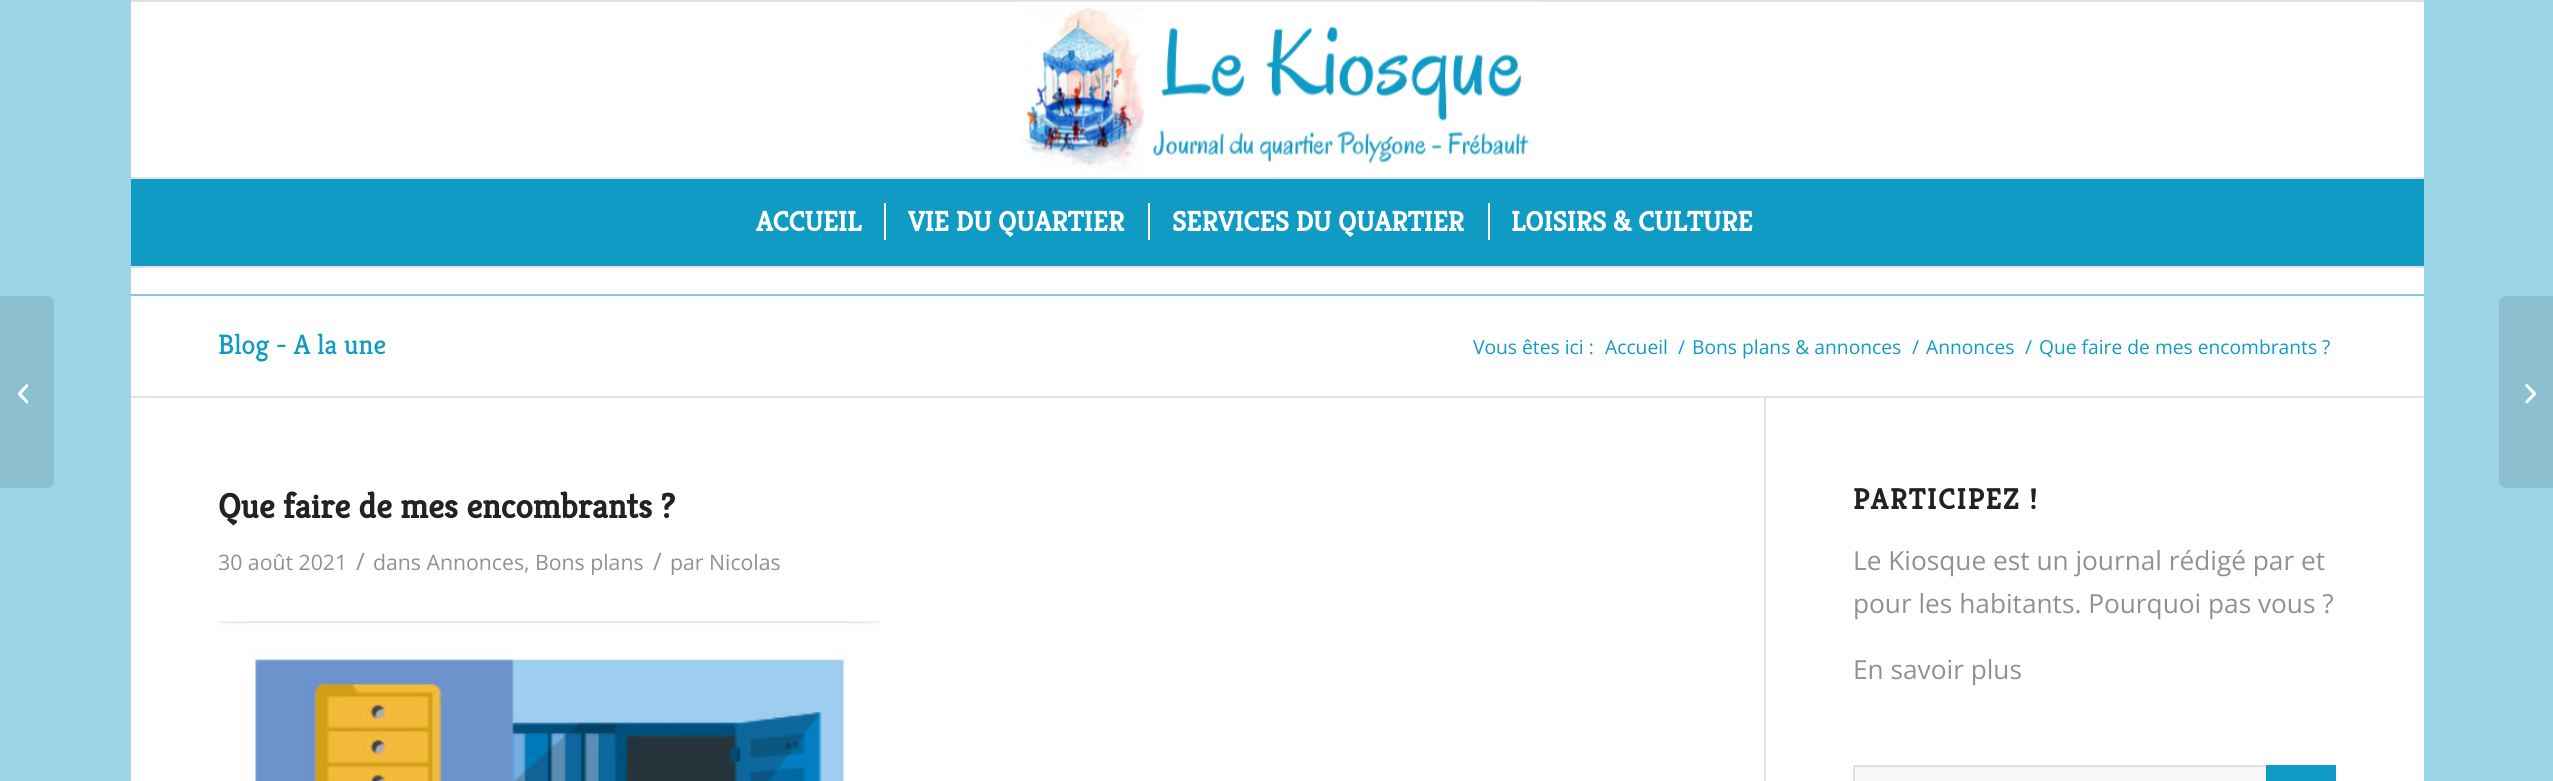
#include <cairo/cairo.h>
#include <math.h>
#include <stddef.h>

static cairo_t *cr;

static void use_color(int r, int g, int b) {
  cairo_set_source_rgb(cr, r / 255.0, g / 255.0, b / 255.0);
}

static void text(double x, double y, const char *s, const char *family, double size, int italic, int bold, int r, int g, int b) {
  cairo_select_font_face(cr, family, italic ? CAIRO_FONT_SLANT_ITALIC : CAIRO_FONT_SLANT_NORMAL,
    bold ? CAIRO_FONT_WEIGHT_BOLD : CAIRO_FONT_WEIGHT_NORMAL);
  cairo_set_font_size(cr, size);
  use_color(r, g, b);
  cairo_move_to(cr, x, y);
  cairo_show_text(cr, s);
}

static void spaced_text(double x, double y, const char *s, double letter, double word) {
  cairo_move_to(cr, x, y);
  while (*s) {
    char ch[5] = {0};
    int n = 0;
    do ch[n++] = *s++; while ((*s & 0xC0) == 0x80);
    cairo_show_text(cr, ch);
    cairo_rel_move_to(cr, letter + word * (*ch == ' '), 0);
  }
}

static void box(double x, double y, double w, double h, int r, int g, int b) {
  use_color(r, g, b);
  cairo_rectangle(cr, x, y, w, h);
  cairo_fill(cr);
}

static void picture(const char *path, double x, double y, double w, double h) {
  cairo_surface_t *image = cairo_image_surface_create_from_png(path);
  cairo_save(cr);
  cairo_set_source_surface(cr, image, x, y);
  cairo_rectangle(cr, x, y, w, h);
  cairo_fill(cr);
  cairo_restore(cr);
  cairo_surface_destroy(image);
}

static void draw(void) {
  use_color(155, 213, 231);
  cairo_paint(cr);
  box(131, 0, 2293, 2, 225, 225, 225);
  box(131, 2, 2293, 779, 255, 255, 255);
  box(131, 266, 2293, 2, 225, 225, 225);
  picture("img_01.png", 1015, 1, 525, 171);
  box(131, 179, 2293, 87, 16, 155, 197);
  box(131, 177, 2293, 2, 225, 225, 225);
  box(884, 203, 2, 37, 255, 255, 255);
  box(1148, 203, 2, 37, 255, 255, 255);
  box(1488, 203, 2, 37, 255, 255, 255);
  use_color(140, 192, 208);
  cairo_new_path(cr);
  cairo_move_to(cr, 0, 296);
  cairo_line_to(cr, 47, 296);
  cairo_curve_to(cr, 51, 296, 54, 299, 54, 303);
  cairo_line_to(cr, 54, 481);
  cairo_curve_to(cr, 54, 485, 51, 488, 47, 488);
  cairo_line_to(cr, 0, 488);
  cairo_close_path(cr);
  cairo_fill(cr);
  picture("img_02.png", 18, 384, 10, 20);
  box(131, 294, 2293, 2, 131, 199, 220);
  box(131, 396, 2293, 2, 225, 225, 225);
  box(1764, 397, 2, 384, 225, 225, 225);
  picture("img_03.png", 219, 621, 661, 160);
  box(1855, 767, 411, 14, 248, 248, 248);
  cairo_rectangle(cr, 1854, 766, 481, 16);
  use_color(225, 225, 225);
  cairo_stroke(cr);
  box(2266, 765, 70, 16, 16, 155, 197);
  use_color(140, 192, 208);
  cairo_new_path(cr);
  cairo_move_to(cr, 2506, 296);
  cairo_line_to(cr, 2553, 296);
  cairo_line_to(cr, 2553, 488);
  cairo_line_to(cr, 2506, 488);
  cairo_curve_to(cr, 2502, 488, 2499, 485, 2499, 481);
  cairo_line_to(cr, 2499, 303);
  cairo_curve_to(cr, 2499, 299, 2502, 296, 2506, 296);
  cairo_close_path(cr);
  cairo_fill(cr);
  picture("img_04.png", 2525, 384, 11, 20);
  text(756, 231, "ACCUEIL", "Kreon", 28, 0, 1, 255, 255, 255);
  text(908, 231, "VIE DU QUARTIER", "Kreon", 28, 0, 1, 255, 255, 255);
  text(1172, 231, "SERVICES DU QUARTIER", "Kreon", 28, 0, 1, 255, 255, 255);
  text(1511, 231, "LOISIRS & CULTURE", "Kreon", 28, 0, 1, 255, 255, 255);
  text(218, 354, "Blog - A la une", "Kreon Light", 28, 0, 0, 16, 155, 197);
  text(1473, 354, "Vous êtes ici :", "Open Sans", 19.25, 0, 0, 16, 155, 197);
  text(1605, 354, "Accueil", "Open Sans", 19.25, 0, 0, 16, 155, 197);
  text(1678, 354, "/", "Open Sans", 19.25, 0, 0, 16, 155, 197);
  text(1692, 354, "Bons plans & annonces", "Open Sans", 19.25, 0, 0, 16, 155, 197);
  text(1912, 354, "/", "Open Sans", 19.25, 0, 0, 16, 155, 197);
  text(1926, 354, "Annonces", "Open Sans", 19.25, 0, 0, 16, 155, 197);
  text(2025, 354, "/", "Open Sans", 19.25, 0, 0, 16, 155, 197);
  text(2039, 354, "Que faire de mes encombrants ?", "Open Sans", 19.25, 0, 0, 16, 155, 197);
  text(218, 518, "Que faire de mes encombrants ?", "Kreon", 35, 0, 1, 34, 34, 34);
  text(218, 570, "30 août 2021", "Open Sans", 21.25, 0, 0, 145, 145, 145);
  text(356, 570, "/", "Open Sans", 24, 0, 0, 145, 145, 145);
  text(373, 570, "dans Annonces, Bons plans", "Open Sans", 21.25, 0, 0, 145, 145, 145);
  text(653, 570, "/", "Open Sans", 24, 0, 0, 145, 145, 145);
  text(670, 570, "par Nicolas", "Open Sans", 21.25, 0, 0, 145, 145, 145);
  cairo_select_font_face(cr, "Kreon", CAIRO_FONT_SLANT_NORMAL, CAIRO_FONT_WEIGHT_BOLD);
  cairo_set_font_size(cr, 29);
  use_color(34, 34, 34);
  spaced_text(1853, 509, "PARTICIPEZ !", 1.75, 0);
  text(1853, 570, "Le Kiosque est un journal rédigé par et", "Open Sans", 26.25, 0, 0, 145, 145, 145);
  text(1853, 613, "pour les habitants. Pourquoi pas vous ?", "Open Sans", 26.25, 0, 0, 145, 145, 145);
  text(1853, 679, "En savoir plus", "Open Sans", 26.25, 0, 0, 145, 145, 145);
}

int main(void) {
  cairo_surface_t *surface = cairo_image_surface_create(CAIRO_FORMAT_RGB24, 2553, 781);
  cr = cairo_create(surface);
  cairo_font_options_t *options = cairo_font_options_create();
  cairo_font_options_set_hint_metrics(options, CAIRO_HINT_METRICS_OFF);
  cairo_font_options_set_hint_style(options, CAIRO_HINT_STYLE_NONE);
  cairo_set_font_options(cr, options);
  cairo_set_miter_limit(cr, 4);
  draw();
  cairo_surface_write_to_png(surface, "out.png");
  cairo_font_options_destroy(options);
  cairo_destroy(cr);
  cairo_surface_destroy(surface);
  return 0;
}
